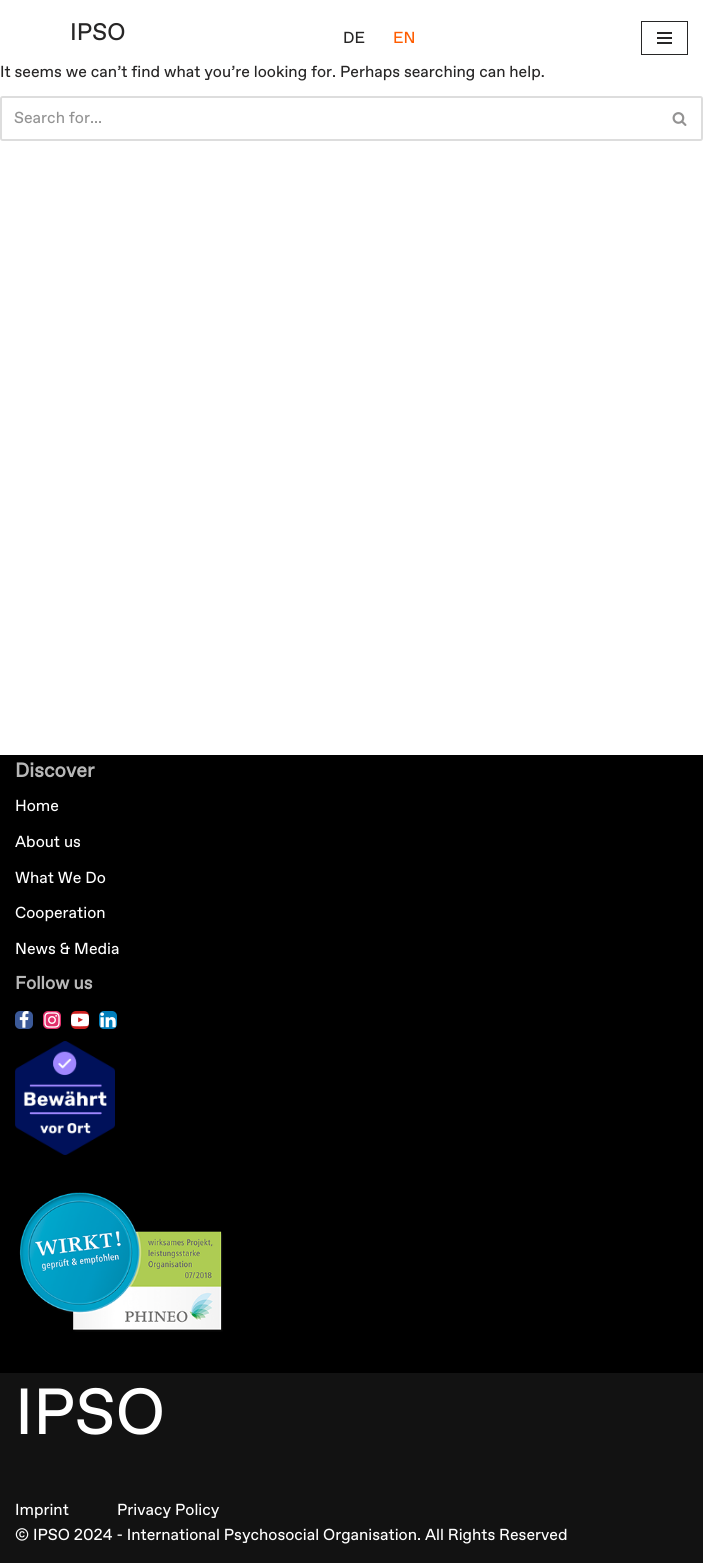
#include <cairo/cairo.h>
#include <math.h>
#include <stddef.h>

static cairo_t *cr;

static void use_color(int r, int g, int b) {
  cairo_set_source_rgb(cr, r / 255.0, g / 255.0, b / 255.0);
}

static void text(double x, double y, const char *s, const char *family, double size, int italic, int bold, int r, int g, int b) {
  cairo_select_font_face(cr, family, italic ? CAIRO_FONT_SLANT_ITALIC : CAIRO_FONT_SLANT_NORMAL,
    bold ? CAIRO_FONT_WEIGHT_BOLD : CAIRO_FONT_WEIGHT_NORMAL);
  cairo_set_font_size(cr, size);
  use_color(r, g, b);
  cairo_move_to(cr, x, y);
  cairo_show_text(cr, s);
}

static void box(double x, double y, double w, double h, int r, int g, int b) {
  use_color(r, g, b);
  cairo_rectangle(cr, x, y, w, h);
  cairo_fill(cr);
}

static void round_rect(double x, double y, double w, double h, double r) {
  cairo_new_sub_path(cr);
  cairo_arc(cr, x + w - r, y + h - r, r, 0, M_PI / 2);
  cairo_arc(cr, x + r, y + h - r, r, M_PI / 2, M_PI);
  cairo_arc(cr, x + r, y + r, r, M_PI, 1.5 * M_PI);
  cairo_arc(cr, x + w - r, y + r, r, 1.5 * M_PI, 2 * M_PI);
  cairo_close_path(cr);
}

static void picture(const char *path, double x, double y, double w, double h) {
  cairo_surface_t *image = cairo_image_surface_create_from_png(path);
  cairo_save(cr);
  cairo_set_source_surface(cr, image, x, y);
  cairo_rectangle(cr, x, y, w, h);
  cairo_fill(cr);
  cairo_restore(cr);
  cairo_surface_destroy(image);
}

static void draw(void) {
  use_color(255, 255, 255);
  cairo_paint(cr);
  cairo_rectangle(cr, 641.5, 21.5, 46, 33);
  use_color(39, 38, 38);
  cairo_set_line_width(cr, 1);
  cairo_stroke(cr);
  box(657, 32, 15, 2, 39, 38, 38);
  box(657, 37, 15, 2, 39, 38, 38);
  box(657, 42, 15, 2, 39, 38, 38);
  use_color(221, 221, 221);
  cairo_set_fill_rule(cr, CAIRO_FILL_RULE_EVEN_ODD);
  cairo_new_path(cr);
  cairo_move_to(cr, 3, 96);
  cairo_line_to(cr, 658, 96);
  cairo_line_to(cr, 658, 141);
  cairo_line_to(cr, 3, 141);
  cairo_curve_to(cr, 1, 141, 0, 140, 0, 138);
  cairo_line_to(cr, 0, 99);
  cairo_curve_to(cr, 0, 97, 1, 96, 3, 96);
  cairo_close_path(cr);
  cairo_move_to(cr, 3, 98);
  cairo_line_to(cr, 658, 98);
  cairo_line_to(cr, 658, 139);
  cairo_line_to(cr, 3, 139);
  cairo_curve_to(cr, 2, 139, 2, 139, 2, 138);
  cairo_line_to(cr, 2, 99);
  cairo_curve_to(cr, 2, 98, 2, 98, 3, 98);
  cairo_close_path(cr);
  cairo_fill(cr);
  cairo_new_path(cr);
  cairo_move_to(cr, 658, 96);
  cairo_line_to(cr, 700, 96);
  cairo_curve_to(cr, 702, 96, 703, 97, 703, 99);
  cairo_line_to(cr, 703, 138);
  cairo_curve_to(cr, 703, 140, 702, 141, 700, 141);
  cairo_line_to(cr, 658, 141);
  cairo_close_path(cr);
  cairo_move_to(cr, 658, 98);
  cairo_line_to(cr, 700, 98);
  cairo_curve_to(cr, 701, 98, 701, 98, 701, 99);
  cairo_line_to(cr, 701, 138);
  cairo_curve_to(cr, 701, 139, 701, 139, 700, 139);
  cairo_line_to(cr, 658, 139);
  cairo_close_path(cr);
  cairo_fill(cr);
  picture("img_01.png", 672, 112, 15, 14);
  box(0, 755, 703, 618, 0, 0, 0);
  use_color(59, 89, 152);
  round_rect(15, 1011, 18, 18, 5);
  cairo_fill(cr);
  picture("img_02.png", 19, 1011, 10, 17);
  use_color(225, 48, 108);
  round_rect(43, 1011, 18, 18, 5);
  cairo_fill(cr);
  picture("img_03.png", 44, 1012, 16, 16);
  use_color(205, 32, 31);
  round_rect(71, 1011, 18, 18, 5);
  cairo_fill(cr);
  picture("img_04.png", 71, 1013, 18, 14);
  use_color(0, 126, 187);
  round_rect(99, 1011, 18, 18, 5);
  cairo_fill(cr);
  picture("img_05.png", 100, 1012, 16, 16);
  picture("img_06.png", 15, 1041, 100, 114);
  picture("img_07.png", 19, 1192, 204, 140);
  box(0, 1373, 703, 190, 18, 18, 18);
  text(70, 40, "IPSO", "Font", 24, 0, 0, 39, 38, 38);
  text(343, 43, "DE", "Font", 16, 0, 0, 39, 38, 38);
  text(393, 43, "EN", "Font", 16, 0, 0, 255, 92, 0);
  text(0, 77, "It seems we can’t find what you’re looking for. Perhaps searching can help.", "Font", 16, 0, 0, 39, 38, 38);
  text(14, 123, "Search for...", "Font", 16, 0, 0, 147, 147, 147);
  text(15, 777, "Discover", "Font", 20, 0, 1, 183, 183, 183);
  text(15, 811, "Home", "Font", 16, 0, 0, 255, 255, 255);
  text(15, 847, "About us", "Font", 16, 0, 0, 255, 255, 255);
  text(15, 883, "What We Do", "Font", 16, 0, 0, 255, 255, 255);
  text(15, 918, "Cooperation", "Font", 16, 0, 0, 255, 255, 255);
  text(15, 954, "News & Media", "Font", 16, 0, 0, 255, 255, 255);
  text(15, 989, "Follow us", "Font", 18, 0, 1, 183, 183, 183);
  text(15, 1434, "IPSO", "Font", 65, 0, 0, 255, 255, 255);
  text(15, 1515, "Imprint", "Font", 16, 0, 0, 255, 255, 255);
  text(117, 1515, "Privacy Policy", "Font", 16, 0, 0, 255, 255, 255);
  text(15, 1540, "© IPSO 2024 - International Psychosocial Organisation. All Rights Reserved", "Font", 16, 0, 0, 255, 255, 255);
}

int main(void) {
  cairo_surface_t *surface = cairo_image_surface_create(CAIRO_FORMAT_RGB24, 703, 1563);
  cr = cairo_create(surface);
  cairo_font_options_t *options = cairo_font_options_create();
  cairo_font_options_set_hint_metrics(options, CAIRO_HINT_METRICS_OFF);
  cairo_font_options_set_hint_style(options, CAIRO_HINT_STYLE_NONE);
  cairo_set_font_options(cr, options);
  cairo_set_miter_limit(cr, 4);
  draw();
  cairo_surface_write_to_png(surface, "out.png");
  cairo_font_options_destroy(options);
  cairo_destroy(cr);
  cairo_surface_destroy(surface);
  return 0;
}
